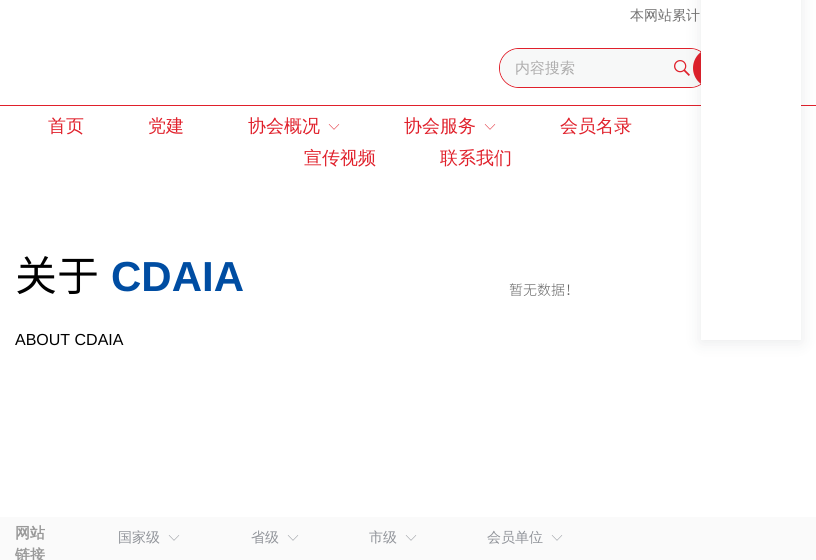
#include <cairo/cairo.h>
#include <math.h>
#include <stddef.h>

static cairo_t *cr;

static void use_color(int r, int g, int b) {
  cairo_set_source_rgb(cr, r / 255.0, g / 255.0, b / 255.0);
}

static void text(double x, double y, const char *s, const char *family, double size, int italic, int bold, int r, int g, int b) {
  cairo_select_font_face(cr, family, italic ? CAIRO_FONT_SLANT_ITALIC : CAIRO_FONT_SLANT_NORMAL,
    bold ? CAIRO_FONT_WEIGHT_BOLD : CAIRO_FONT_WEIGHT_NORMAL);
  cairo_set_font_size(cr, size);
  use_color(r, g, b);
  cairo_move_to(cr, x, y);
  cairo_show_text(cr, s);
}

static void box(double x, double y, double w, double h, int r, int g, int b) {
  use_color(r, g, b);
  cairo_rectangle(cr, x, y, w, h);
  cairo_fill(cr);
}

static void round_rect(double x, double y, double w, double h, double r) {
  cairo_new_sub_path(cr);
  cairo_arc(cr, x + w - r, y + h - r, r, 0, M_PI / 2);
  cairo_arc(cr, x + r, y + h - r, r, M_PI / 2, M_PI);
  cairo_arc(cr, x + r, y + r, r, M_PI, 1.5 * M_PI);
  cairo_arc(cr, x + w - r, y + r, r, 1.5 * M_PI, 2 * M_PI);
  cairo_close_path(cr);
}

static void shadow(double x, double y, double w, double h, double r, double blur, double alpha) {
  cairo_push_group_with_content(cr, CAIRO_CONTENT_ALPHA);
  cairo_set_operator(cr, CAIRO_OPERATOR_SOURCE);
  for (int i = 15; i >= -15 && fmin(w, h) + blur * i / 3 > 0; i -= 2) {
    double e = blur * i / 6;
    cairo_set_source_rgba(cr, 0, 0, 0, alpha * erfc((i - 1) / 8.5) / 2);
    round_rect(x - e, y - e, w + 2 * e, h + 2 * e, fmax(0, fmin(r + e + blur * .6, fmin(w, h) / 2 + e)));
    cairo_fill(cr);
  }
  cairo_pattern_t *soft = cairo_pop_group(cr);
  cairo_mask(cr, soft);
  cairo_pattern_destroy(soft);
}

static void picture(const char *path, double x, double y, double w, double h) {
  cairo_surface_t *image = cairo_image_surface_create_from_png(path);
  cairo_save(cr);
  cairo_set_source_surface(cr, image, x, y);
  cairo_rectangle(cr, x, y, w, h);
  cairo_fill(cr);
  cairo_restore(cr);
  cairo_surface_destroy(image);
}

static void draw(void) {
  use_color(255, 255, 255);
  cairo_paint(cr);
  round_rect(499.5, 48.5, 210, 39, 19.5);
  use_color(224, 32, 43);
  cairo_set_line_width(cr, 1);
  cairo_stroke(cr);
  use_color(247, 248, 248);
  round_rect(500, 49, 209, 38, 19);
  cairo_fill(cr);
  picture("img_01.png", 674, 60, 16, 16);
  use_color(224, 32, 43);
  round_rect(693, 48, 108, 40, 20);
  cairo_fill(cr);
  box(0, 105, 816, 1, 224, 32, 43);
  picture("img_02.png", 328, 124, 12, 6);
  picture("img_02.png", 484, 124, 12, 6);
  box(0, 517, 816, 43, 250, 250, 250);
  picture("img_03.png", 168, 535, 12, 6);
  picture("img_03.png", 287, 535, 12, 6);
  picture("img_03.png", 405, 535, 12, 6);
  picture("img_03.png", 551, 535, 12, 6);
  use_color(30, 39, 48);
  shadow(701, -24, 100, 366, 0, 8, 0.1);
  box(701, 0, 100, 340, 255, 255, 255);
  text(630, 20, "本网站累计", "WenQuanYi Zen Hei Medium", 14, 0, 0, 114, 113, 113);
  text(515, 73, "内容搜索", "WenQuanYi Zen Hei Medium", 15, 0, 0, 173, 172, 172);
  text(48, 132, "首页", "WenQuanYi Zen Hei Medium", 18, 0, 0, 224, 32, 43);
  text(148, 132, "党建", "WenQuanYi Zen Hei Medium", 18, 0, 0, 224, 32, 43);
  text(248, 132, "协会概况", "WenQuanYi Zen Hei Medium", 18, 0, 0, 224, 32, 43);
  text(404, 132, "协会服务", "WenQuanYi Zen Hei Medium", 18, 0, 0, 224, 32, 43);
  text(560, 132, "会员名录", "WenQuanYi Zen Hei Medium", 18, 0, 0, 224, 32, 43);
  text(304, 164, "宣传视频", "WenQuanYi Zen Hei Medium", 18, 0, 0, 224, 32, 43);
  text(440, 164, "联系我们", "WenQuanYi Zen Hei Medium", 18, 0, 0, 224, 32, 43);
  text(15, 291, "关于", "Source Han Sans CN", 42, 0, 0, 0, 0, 0);
  text(111, 291, "CDAIA", "Liberation Sans", 42, 0, 1, 0, 77, 162);
  text(15, 345, "ABOUT CDAIA", "Liberation Sans", 16, 0, 0, 0, 0, 0);
  text(509, 295, "暂无数据！", "Source Han Sans CN Light", 14, 0, 0, 102, 102, 102);
  text(15, 538, "网站", "WenQuanYi Zen Hei", 15, 0, 1, 153, 153, 153);
  text(15, 560, "链接", "WenQuanYi Zen Hei", 15, 0, 1, 153, 153, 153);
  text(118, 542, "国家级", "WenQuanYi Zen Hei Medium", 14, 0, 0, 144, 147, 153);
  text(251, 542, "省级", "WenQuanYi Zen Hei Medium", 14, 0, 0, 144, 147, 153);
  text(369, 542, "市级", "WenQuanYi Zen Hei Medium", 14, 0, 0, 144, 147, 153);
  text(487, 542, "会员单位", "WenQuanYi Zen Hei Medium", 14, 0, 0, 144, 147, 153);
}

int main(void) {
  cairo_surface_t *surface = cairo_image_surface_create(CAIRO_FORMAT_RGB24, 816, 560);
  cr = cairo_create(surface);
  cairo_font_options_t *options = cairo_font_options_create();
  cairo_font_options_set_hint_metrics(options, CAIRO_HINT_METRICS_OFF);
  cairo_font_options_set_hint_style(options, CAIRO_HINT_STYLE_NONE);
  cairo_set_font_options(cr, options);
  cairo_set_miter_limit(cr, 4);
  draw();
  cairo_surface_write_to_png(surface, "out.png");
  cairo_font_options_destroy(options);
  cairo_destroy(cr);
  cairo_surface_destroy(surface);
  return 0;
}
